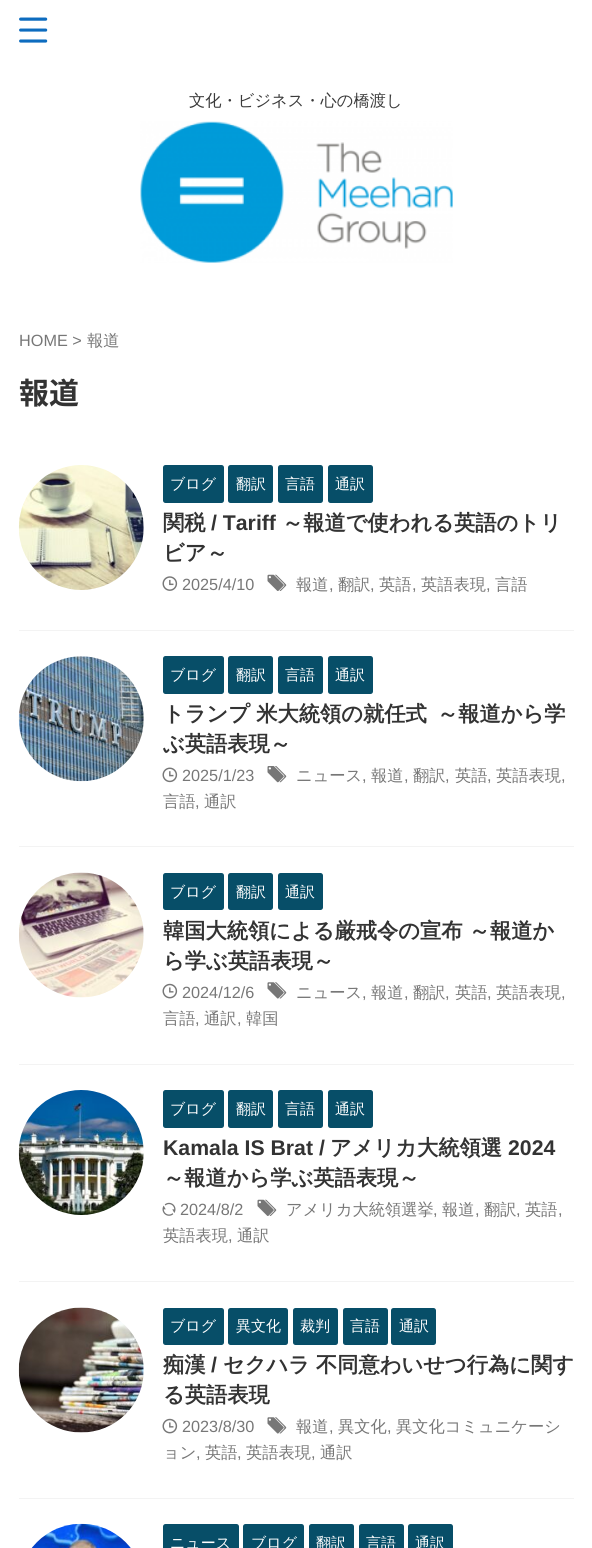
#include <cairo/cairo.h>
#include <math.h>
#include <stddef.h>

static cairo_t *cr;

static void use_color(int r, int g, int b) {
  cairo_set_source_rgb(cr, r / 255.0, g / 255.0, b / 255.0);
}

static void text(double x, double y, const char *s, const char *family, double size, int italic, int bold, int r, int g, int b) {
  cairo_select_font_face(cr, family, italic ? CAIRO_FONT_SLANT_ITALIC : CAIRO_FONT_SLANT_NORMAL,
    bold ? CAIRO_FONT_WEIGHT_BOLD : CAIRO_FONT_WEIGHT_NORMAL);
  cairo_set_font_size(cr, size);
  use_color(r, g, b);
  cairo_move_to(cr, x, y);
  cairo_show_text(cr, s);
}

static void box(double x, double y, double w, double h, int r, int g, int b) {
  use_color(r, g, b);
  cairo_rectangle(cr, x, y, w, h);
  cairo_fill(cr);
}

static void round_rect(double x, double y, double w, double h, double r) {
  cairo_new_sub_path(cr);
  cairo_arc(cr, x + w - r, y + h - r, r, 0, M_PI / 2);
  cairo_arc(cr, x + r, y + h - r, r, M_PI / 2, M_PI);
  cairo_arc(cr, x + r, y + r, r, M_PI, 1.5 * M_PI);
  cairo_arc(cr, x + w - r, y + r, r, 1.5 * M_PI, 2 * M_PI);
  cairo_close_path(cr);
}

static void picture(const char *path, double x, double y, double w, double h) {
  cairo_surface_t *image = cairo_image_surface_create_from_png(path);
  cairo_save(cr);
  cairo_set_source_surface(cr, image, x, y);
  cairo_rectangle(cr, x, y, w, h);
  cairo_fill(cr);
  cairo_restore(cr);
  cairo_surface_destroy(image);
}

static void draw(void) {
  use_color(255, 255, 255);
  cairo_paint(cr);
  picture("img_01.png", 19, 17, 29, 26);
  picture("img_02.png", 140, 121, 313, 142);
  box(19, 630, 555, 1, 243, 243, 243);
  picture("img_03.png", 18, 465, 126, 125);
  use_color(7, 78, 104);
  round_rect(163, 465, 61, 38, 2.5);
  cairo_fill(cr);
  round_rect(228, 465, 45, 38, 2.5);
  cairo_fill(cr);
  round_rect(278, 465, 45, 38, 2.5);
  cairo_fill(cr);
  round_rect(328, 465, 45, 38, 2.5);
  cairo_fill(cr);
  picture("img_04.png", 162, 576, 16, 15);
  picture("img_05.png", 267, 574, 20, 17);
  box(19, 846, 555, 1, 243, 243, 243);
  picture("img_06.png", 18, 656, 126, 126);
  use_color(7, 78, 104);
  round_rect(163, 656, 61, 38, 2.5);
  cairo_fill(cr);
  round_rect(228, 656, 45, 38, 2.5);
  cairo_fill(cr);
  round_rect(278, 656, 45, 38, 2.5);
  cairo_fill(cr);
  round_rect(328, 656, 45, 38, 2.5);
  cairo_fill(cr);
  picture("img_07.png", 162, 767, 16, 16);
  picture("img_08.png", 267, 766, 20, 17);
  box(19, 1064, 555, 1, 243, 243, 243);
  picture("img_09.png", 19, 872, 125, 126);
  use_color(7, 78, 104);
  round_rect(163, 873, 61, 37, 2.5);
  cairo_fill(cr);
  round_rect(228, 873, 45, 37, 2.5);
  cairo_fill(cr);
  round_rect(278, 873, 45, 37, 2.5);
  cairo_fill(cr);
  picture("img_10.png", 162, 983, 16, 16);
  picture("img_11.png", 267, 982, 20, 17);
  box(19, 1281, 555, 1, 243, 243, 243);
  picture("img_12.png", 18, 1090, 126, 125);
  use_color(7, 78, 104);
  round_rect(163, 1090, 61, 38, 2.5);
  cairo_fill(cr);
  round_rect(228, 1090, 45, 38, 2.5);
  cairo_fill(cr);
  round_rect(278, 1090, 45, 38, 2.5);
  cairo_fill(cr);
  round_rect(328, 1090, 45, 38, 2.5);
  cairo_fill(cr);
  picture("img_13.png", 162, 1202, 14, 14);
  picture("img_05.png", 257, 1199, 20, 17);
  box(19, 1498, 555, 1, 243, 243, 243);
  picture("img_14.png", 18, 1307, 126, 126);
  use_color(7, 78, 104);
  round_rect(163, 1308, 61, 37, 2.5);
  cairo_fill(cr);
  round_rect(228, 1308, 60, 37, 2.5);
  cairo_fill(cr);
  round_rect(293, 1308, 45, 37, 2.5);
  cairo_fill(cr);
  round_rect(343, 1308, 45, 37, 2.5);
  cairo_fill(cr);
  round_rect(391, 1308, 45, 37, 2.5);
  cairo_fill(cr);
  picture("img_10.png", 162, 1418, 16, 16);
  picture("img_11.png", 267, 1417, 20, 17);
  picture("img_15.png", 31, 1523, 100, 25);
  round_rect(163, 1524, 76, 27, 2.5);
  cairo_fill(cr);
  round_rect(243, 1524, 61, 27, 2.5);
  cairo_fill(cr);
  round_rect(309, 1524, 45, 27, 2.5);
  cairo_fill(cr);
  round_rect(359, 1524, 45, 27, 2.5);
  cairo_fill(cr);
  round_rect(408, 1524, 45, 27, 2.5);
  cairo_fill(cr);
  text(189, 106, "文化・ビジネス・心の橋渡し", "WenQuanYi Zen Hei Medium", 16.25, 0, 0, 58, 58, 58);
  text(19, 346, "HOME >", "Liberation Sans", 16.25, 0, 0, 119, 119, 119);
  text(87, 346, "報道", "WenQuanYi Zen Hei Medium", 16.25, 0, 0, 119, 119, 119);
  text(19, 404, "報道", "Noto Sans JP", 30, 0, 1, 51, 51, 51);
  text(170, 489, "ブログ", "WenQuanYi Zen Hei Medium", 15, 0, 0, 255, 255, 255);
  text(236, 489, "翻訳", "WenQuanYi Zen Hei Medium", 15, 0, 0, 255, 255, 255);
  text(285, 489, "言語", "WenQuanYi Zen Hei Medium", 15, 0, 0, 255, 255, 255);
  text(335, 489, "通訳", "WenQuanYi Zen Hei Medium", 15, 0, 0, 255, 255, 255);
  text(163, 530, "関税", "WenQuanYi Zen Hei", 21.25, 0, 1, 51, 51, 51);
  text(211, 530, "/ Tariff", "Liberation Sans", 21.25, 0, 1, 51, 51, 51);
  text(282, 530, "～報道で使われる英語のトリ", "WenQuanYi Zen Hei", 21.25, 0, 1, 51, 51, 51);
  text(163, 560, "ビア～", "WenQuanYi Zen Hei", 21.25, 0, 1, 51, 51, 51);
  text(182, 590, "2025/4/10", "Liberation Sans", 16.25, 0, 0, 119, 119, 119);
  text(296, 590, "報道", "WenQuanYi Zen Hei Medium", 16.25, 0, 0, 119, 119, 119);
  text(329, 590, ",", "Liberation Sans", 16.25, 0, 0, 119, 119, 119);
  text(338, 590, "翻訳", "WenQuanYi Zen Hei Medium", 16.25, 0, 0, 119, 119, 119);
  text(370, 590, ",", "Liberation Sans", 16.25, 0, 0, 119, 119, 119);
  text(379, 590, "英語", "WenQuanYi Zen Hei Medium", 16.25, 0, 0, 119, 119, 119);
  text(412, 590, ",", "Liberation Sans", 16.25, 0, 0, 119, 119, 119);
  text(421, 590, "英語表現", "WenQuanYi Zen Hei Medium", 16.25, 0, 0, 119, 119, 119);
  text(486, 590, ",", "Liberation Sans", 16.25, 0, 0, 119, 119, 119);
  text(495, 590, "言語", "WenQuanYi Zen Hei Medium", 16.25, 0, 0, 119, 119, 119);
  text(170, 680, "ブログ", "WenQuanYi Zen Hei Medium", 15, 0, 0, 255, 255, 255);
  text(236, 680, "翻訳", "WenQuanYi Zen Hei Medium", 15, 0, 0, 255, 255, 255);
  text(285, 680, "言語", "WenQuanYi Zen Hei Medium", 15, 0, 0, 255, 255, 255);
  text(335, 680, "通訳", "WenQuanYi Zen Hei Medium", 15, 0, 0, 255, 255, 255);
  text(163, 721, "トランプ 米大統領の就任式", "WenQuanYi Zen Hei", 21.25, 0, 1, 51, 51, 51);
  text(437, 721, "～報道から学", "WenQuanYi Zen Hei", 21.25, 0, 1, 51, 51, 51);
  text(163, 751, "ぶ英語表現～", "WenQuanYi Zen Hei", 21.25, 0, 1, 51, 51, 51);
  text(182, 781, "2025/1/23", "Liberation Sans", 16.25, 0, 0, 119, 119, 119);
  text(296, 781, "ニュース", "WenQuanYi Zen Hei Medium", 16.25, 0, 0, 119, 119, 119);
  text(362, 781, ",", "Liberation Sans", 16.25, 0, 0, 119, 119, 119);
  text(371, 781, "報道", "WenQuanYi Zen Hei Medium", 16.25, 0, 0, 119, 119, 119);
  text(404, 781, ",", "Liberation Sans", 16.25, 0, 0, 119, 119, 119);
  text(413, 781, "翻訳", "WenQuanYi Zen Hei Medium", 16.25, 0, 0, 119, 119, 119);
  text(445, 781, ",", "Liberation Sans", 16.25, 0, 0, 119, 119, 119);
  text(455, 781, "英語", "WenQuanYi Zen Hei Medium", 16.25, 0, 0, 119, 119, 119);
  text(487, 781, ",", "Liberation Sans", 16.25, 0, 0, 119, 119, 119);
  text(496, 781, "英語表現", "WenQuanYi Zen Hei Medium", 16.25, 0, 0, 119, 119, 119);
  text(561, 781, ",", "Liberation Sans", 16.25, 0, 0, 119, 119, 119);
  text(163, 807, "言語", "WenQuanYi Zen Hei Medium", 16.25, 0, 0, 119, 119, 119);
  text(195, 807, ",", "Liberation Sans", 16.25, 0, 0, 119, 119, 119);
  text(204, 807, "通訳", "WenQuanYi Zen Hei Medium", 16.25, 0, 0, 119, 119, 119);
  text(170, 897, "ブログ", "WenQuanYi Zen Hei Medium", 15, 0, 0, 255, 255, 255);
  text(236, 897, "翻訳", "WenQuanYi Zen Hei Medium", 15, 0, 0, 255, 255, 255);
  text(285, 897, "通訳", "WenQuanYi Zen Hei Medium", 15, 0, 0, 255, 255, 255);
  text(163, 938, "韓国大統領による厳戒令の宣布 ～報道か", "WenQuanYi Zen Hei", 21.25, 0, 1, 51, 51, 51);
  text(163, 968, "ら学ぶ英語表現～", "WenQuanYi Zen Hei", 21.25, 0, 1, 51, 51, 51);
  text(182, 998, "2024/12/6", "Liberation Sans", 16.25, 0, 0, 119, 119, 119);
  text(296, 998, "ニュース", "WenQuanYi Zen Hei Medium", 16.25, 0, 0, 119, 119, 119);
  text(362, 998, ",", "Liberation Sans", 16.25, 0, 0, 119, 119, 119);
  text(371, 998, "報道", "WenQuanYi Zen Hei Medium", 16.25, 0, 0, 119, 119, 119);
  text(404, 998, ",", "Liberation Sans", 16.25, 0, 0, 119, 119, 119);
  text(413, 998, "翻訳", "WenQuanYi Zen Hei Medium", 16.25, 0, 0, 119, 119, 119);
  text(445, 998, ",", "Liberation Sans", 16.25, 0, 0, 119, 119, 119);
  text(455, 998, "英語", "WenQuanYi Zen Hei Medium", 16.25, 0, 0, 119, 119, 119);
  text(487, 998, ",", "Liberation Sans", 16.25, 0, 0, 119, 119, 119);
  text(496, 998, "英語表現", "WenQuanYi Zen Hei Medium", 16.25, 0, 0, 119, 119, 119);
  text(561, 998, ",", "Liberation Sans", 16.25, 0, 0, 119, 119, 119);
  text(163, 1024, "言語", "WenQuanYi Zen Hei Medium", 16.25, 0, 0, 119, 119, 119);
  text(195, 1024, ",", "Liberation Sans", 16.25, 0, 0, 119, 119, 119);
  text(204, 1024, "通訳", "WenQuanYi Zen Hei Medium", 16.25, 0, 0, 119, 119, 119);
  text(237, 1024, ",", "Liberation Sans", 16.25, 0, 0, 119, 119, 119);
  text(246, 1024, "韓国", "WenQuanYi Zen Hei Medium", 16.25, 0, 0, 119, 119, 119);
  text(170, 1114, "ブログ", "WenQuanYi Zen Hei Medium", 15, 0, 0, 255, 255, 255);
  text(236, 1114, "翻訳", "WenQuanYi Zen Hei Medium", 15, 0, 0, 255, 255, 255);
  text(285, 1114, "言語", "WenQuanYi Zen Hei Medium", 15, 0, 0, 255, 255, 255);
  text(335, 1114, "通訳", "WenQuanYi Zen Hei Medium", 15, 0, 0, 255, 255, 255);
  text(163, 1155, "Kamala IS Brat /", "Liberation Sans", 21.25, 0, 1, 51, 51, 51);
  text(330, 1155, "アメリカ大統領選", "WenQuanYi Zen Hei", 21.25, 0, 1, 51, 51, 51);
  text(508, 1155, "2024", "Liberation Sans", 21.25, 0, 1, 51, 51, 51);
  text(163, 1185, "～報道から学ぶ英語表現～", "WenQuanYi Zen Hei", 21.25, 0, 1, 51, 51, 51);
  text(180, 1215, "2024/8/2", "Liberation Sans", 16.25, 0, 0, 119, 119, 119);
  text(286, 1215, "アメリカ大統領選挙", "WenQuanYi Zen Hei Medium", 16.25, 0, 0, 119, 119, 119);
  text(433, 1215, ",", "Liberation Sans", 16.25, 0, 0, 119, 119, 119);
  text(442, 1215, "報道", "WenQuanYi Zen Hei Medium", 16.25, 0, 0, 119, 119, 119);
  text(475, 1215, ",", "Liberation Sans", 16.25, 0, 0, 119, 119, 119);
  text(484, 1215, "翻訳", "WenQuanYi Zen Hei Medium", 16.25, 0, 0, 119, 119, 119);
  text(516, 1215, ",", "Liberation Sans", 16.25, 0, 0, 119, 119, 119);
  text(525, 1215, "英語", "WenQuanYi Zen Hei Medium", 16.25, 0, 0, 119, 119, 119);
  text(558, 1215, ",", "Liberation Sans", 16.25, 0, 0, 119, 119, 119);
  text(163, 1241, "英語表現", "WenQuanYi Zen Hei Medium", 16.25, 0, 0, 119, 119, 119);
  text(228, 1241, ",", "Liberation Sans", 16.25, 0, 0, 119, 119, 119);
  text(237, 1241, "通訳", "WenQuanYi Zen Hei Medium", 16.25, 0, 0, 119, 119, 119);
  text(170, 1331, "ブログ", "WenQuanYi Zen Hei Medium", 15, 0, 0, 255, 255, 255);
  text(236, 1331, "異文化", "WenQuanYi Zen Hei Medium", 15, 0, 0, 255, 255, 255);
  text(300, 1331, "裁判", "WenQuanYi Zen Hei Medium", 15, 0, 0, 255, 255, 255);
  text(350, 1331, "言語", "WenQuanYi Zen Hei Medium", 15, 0, 0, 255, 255, 255);
  text(399, 1331, "通訳", "WenQuanYi Zen Hei Medium", 15, 0, 0, 255, 255, 255);
  text(163, 1372, "痴漢", "WenQuanYi Zen Hei", 21.25, 0, 1, 51, 51, 51);
  text(211, 1372, "/", "Liberation Sans", 21.25, 0, 1, 51, 51, 51);
  text(223, 1372, "セクハラ", "WenQuanYi Zen Hei", 21.25, 0, 1, 51, 51, 51);
  text(316, 1372, "不同意わいせつ行為に関す", "WenQuanYi Zen Hei", 21.25, 0, 1, 51, 51, 51);
  text(163, 1402, "る英語表現", "WenQuanYi Zen Hei", 21.25, 0, 1, 51, 51, 51);
  text(182, 1432, "2023/8/30", "Liberation Sans", 16.25, 0, 0, 119, 119, 119);
  text(296, 1432, "報道", "WenQuanYi Zen Hei Medium", 16.25, 0, 0, 119, 119, 119);
  text(329, 1432, ",", "Liberation Sans", 16.25, 0, 0, 119, 119, 119);
  text(338, 1432, "異文化", "WenQuanYi Zen Hei Medium", 16.25, 0, 0, 119, 119, 119);
  text(387, 1432, ",", "Liberation Sans", 16.25, 0, 0, 119, 119, 119);
  text(396, 1432, "異文化コミュニケーシ", "WenQuanYi Zen Hei Medium", 16.25, 0, 0, 119, 119, 119);
  text(163, 1458, "ョン", "WenQuanYi Zen Hei Medium", 16.25, 0, 0, 119, 119, 119);
  text(196, 1458, ",", "Liberation Sans", 16.25, 0, 0, 119, 119, 119);
  text(205, 1458, "英語", "WenQuanYi Zen Hei Medium", 16.25, 0, 0, 119, 119, 119);
  text(237, 1458, ",", "Liberation Sans", 16.25, 0, 0, 119, 119, 119);
  text(246, 1458, "英語表現", "WenQuanYi Zen Hei Medium", 16.25, 0, 0, 119, 119, 119);
  text(311, 1458, ",", "Liberation Sans", 16.25, 0, 0, 119, 119, 119);
  text(320, 1458, "通訳", "WenQuanYi Zen Hei Medium", 16.25, 0, 0, 119, 119, 119);
  text(170, 1548, "ニュース", "WenQuanYi Zen Hei Medium", 15, 0, 0, 255, 255, 255);
  text(251, 1548, "ブログ", "WenQuanYi Zen Hei Medium", 15, 0, 0, 255, 255, 255);
  text(316, 1548, "翻訳", "WenQuanYi Zen Hei Medium", 15, 0, 0, 255, 255, 255);
  text(366, 1548, "言語", "WenQuanYi Zen Hei Medium", 15, 0, 0, 255, 255, 255);
  text(415, 1548, "通訳", "WenQuanYi Zen Hei Medium", 15, 0, 0, 255, 255, 255);
}

int main(void) {
  cairo_surface_t *surface = cairo_image_surface_create(CAIRO_FORMAT_RGB24, 592, 1548);
  cr = cairo_create(surface);
  cairo_font_options_t *options = cairo_font_options_create();
  cairo_font_options_set_hint_metrics(options, CAIRO_HINT_METRICS_OFF);
  cairo_font_options_set_hint_style(options, CAIRO_HINT_STYLE_NONE);
  cairo_set_font_options(cr, options);
  cairo_set_miter_limit(cr, 4);
  draw();
  cairo_surface_write_to_png(surface, "out.png");
  cairo_font_options_destroy(options);
  cairo_destroy(cr);
  cairo_surface_destroy(surface);
  return 0;
}
